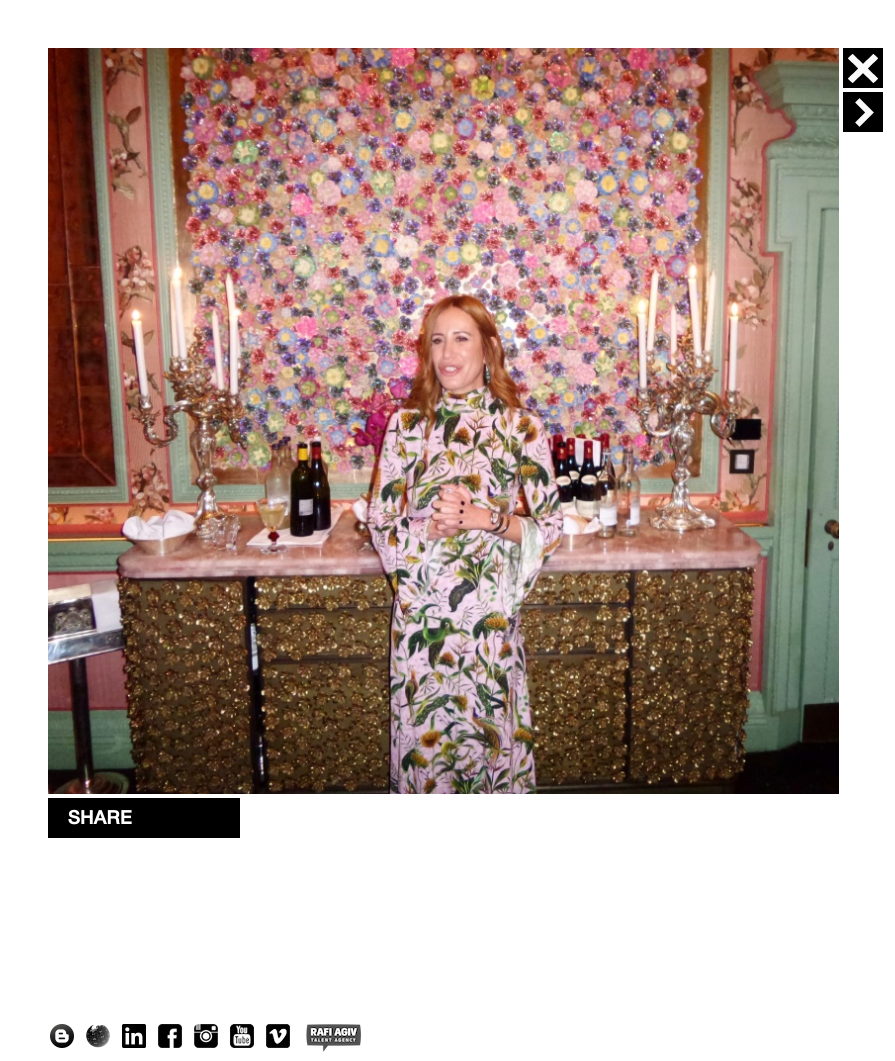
#include <cairo/cairo.h>
#include <math.h>
#include <stddef.h>

static cairo_t *cr;

static void use_color(int r, int g, int b) {
  cairo_set_source_rgb(cr, r / 255.0, g / 255.0, b / 255.0);
}

static void text(double x, double y, const char *s, const char *family, double size, int italic, int bold, int r, int g, int b) {
  cairo_select_font_face(cr, family, italic ? CAIRO_FONT_SLANT_ITALIC : CAIRO_FONT_SLANT_NORMAL,
    bold ? CAIRO_FONT_WEIGHT_BOLD : CAIRO_FONT_WEIGHT_NORMAL);
  cairo_set_font_size(cr, size);
  use_color(r, g, b);
  cairo_move_to(cr, x, y);
  cairo_show_text(cr, s);
}

static void box(double x, double y, double w, double h, int r, int g, int b) {
  use_color(r, g, b);
  cairo_rectangle(cr, x, y, w, h);
  cairo_fill(cr);
}

static void picture(const char *path, double x, double y, double w, double h) {
  cairo_surface_t *image = cairo_image_surface_create_from_png(path);
  cairo_save(cr);
  cairo_set_source_surface(cr, image, x, y);
  cairo_rectangle(cr, x, y, w, h);
  cairo_fill(cr);
  cairo_restore(cr);
  cairo_surface_destroy(image);
}

static void draw(void) {
  use_color(255, 255, 255);
  cairo_paint(cr);
  picture("img_01.png", 843, 48, 40, 40);
  picture("img_02.png", 843, 92, 40, 40);
  picture("img_03.png", 48, 48, 791, 746);
  box(48, 798, 192, 40, 0, 0, 0);
  picture("img_04.png", 50, 1024, 24, 24);
  picture("img_05.png", 86, 1024, 24, 24);
  picture("img_06.png", 122, 1024, 24, 24);
  picture("img_07.png", 158, 1024, 24, 24);
  picture("img_08.png", 194, 1024, 24, 24);
  picture("img_09.png", 230, 1024, 24, 24);
  picture("img_10.png", 266, 1024, 24, 24);
  picture("img_11.png", 306, 1024, 56, 28);
  text(68, 824, "SHARE", "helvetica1", 20, 0, 1, 255, 255, 255);
}

int main(void) {
  cairo_surface_t *surface = cairo_image_surface_create(CAIRO_FORMAT_RGB24, 895, 1061);
  cr = cairo_create(surface);
  cairo_font_options_t *options = cairo_font_options_create();
  cairo_font_options_set_hint_metrics(options, CAIRO_HINT_METRICS_OFF);
  cairo_font_options_set_hint_style(options, CAIRO_HINT_STYLE_NONE);
  cairo_set_font_options(cr, options);
  cairo_set_miter_limit(cr, 4);
  draw();
  cairo_surface_write_to_png(surface, "out.png");
  cairo_font_options_destroy(options);
  cairo_destroy(cr);
  cairo_surface_destroy(surface);
  return 0;
}
